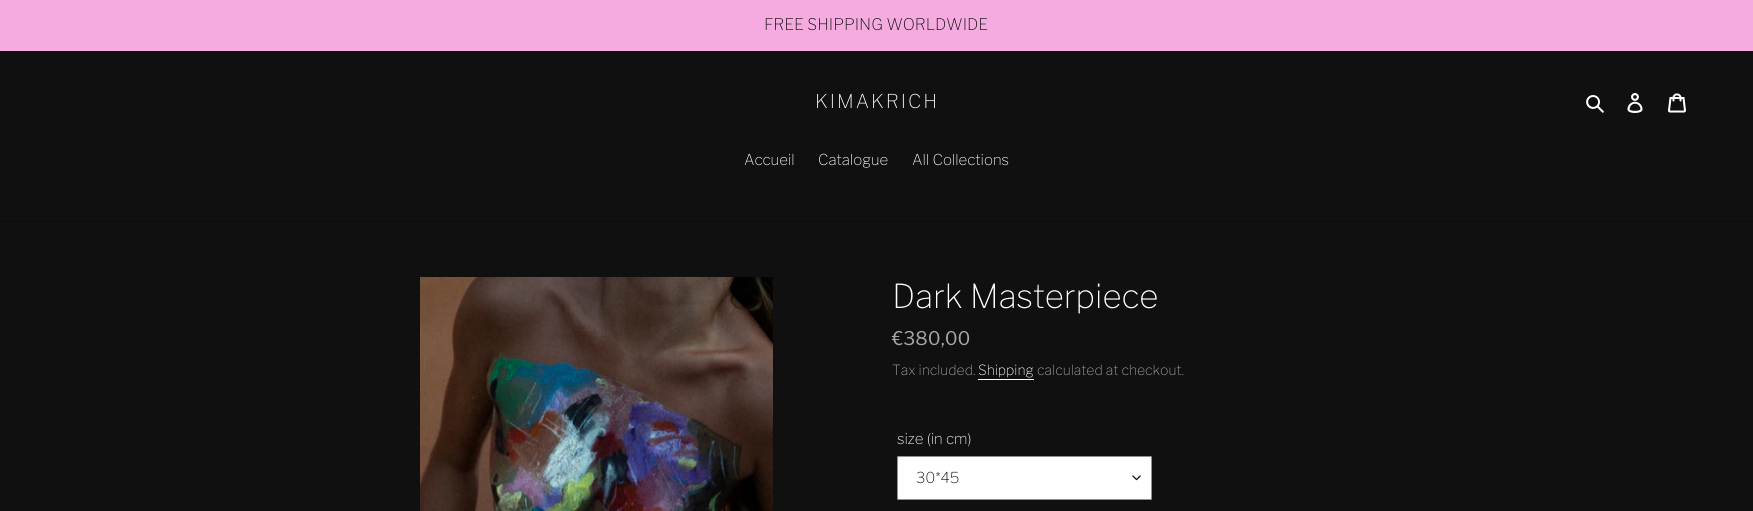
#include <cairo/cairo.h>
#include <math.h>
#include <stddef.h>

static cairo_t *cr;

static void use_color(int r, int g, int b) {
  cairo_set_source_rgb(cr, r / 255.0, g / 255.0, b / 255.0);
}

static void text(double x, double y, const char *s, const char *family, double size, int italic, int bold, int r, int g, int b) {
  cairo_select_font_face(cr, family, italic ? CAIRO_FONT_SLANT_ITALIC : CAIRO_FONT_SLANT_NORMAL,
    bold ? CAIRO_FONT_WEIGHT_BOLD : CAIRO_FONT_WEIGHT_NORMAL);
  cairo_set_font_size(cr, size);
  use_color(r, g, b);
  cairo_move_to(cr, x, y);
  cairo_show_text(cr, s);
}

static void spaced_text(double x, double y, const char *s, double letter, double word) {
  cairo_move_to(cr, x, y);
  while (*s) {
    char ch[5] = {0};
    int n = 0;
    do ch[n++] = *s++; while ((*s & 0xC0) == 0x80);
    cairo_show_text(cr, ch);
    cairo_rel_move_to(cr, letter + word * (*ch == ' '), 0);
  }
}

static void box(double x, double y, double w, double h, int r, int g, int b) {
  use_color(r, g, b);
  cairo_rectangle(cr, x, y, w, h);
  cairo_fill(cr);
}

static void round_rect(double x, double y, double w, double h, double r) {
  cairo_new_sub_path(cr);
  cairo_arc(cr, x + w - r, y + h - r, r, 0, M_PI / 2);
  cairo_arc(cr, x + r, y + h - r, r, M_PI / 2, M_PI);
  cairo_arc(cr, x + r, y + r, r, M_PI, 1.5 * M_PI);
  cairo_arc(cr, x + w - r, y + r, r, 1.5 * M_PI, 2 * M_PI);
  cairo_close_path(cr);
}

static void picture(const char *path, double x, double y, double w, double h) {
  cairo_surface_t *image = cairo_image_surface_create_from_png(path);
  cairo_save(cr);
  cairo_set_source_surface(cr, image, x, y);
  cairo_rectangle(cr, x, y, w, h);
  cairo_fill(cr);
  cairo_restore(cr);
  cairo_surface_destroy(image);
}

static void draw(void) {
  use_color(16, 16, 16);
  cairo_paint(cr);
  box(0, 0, 1753, 51, 245, 170, 224);
  picture("img_01.png", 1586, 95, 18, 18);
  picture("img_02.png", 1627, 93, 16, 20);
  picture("img_03.png", 1668, 93, 18, 20);
  box(0, 221, 1753, 1, 12, 12, 13);
  picture("img_04.png", 420, 277, 353, 234);
  box(978, 379, 56, 1, 255, 255, 255);
  round_rect(897, 456, 255, 44, 2);
  cairo_fill(cr);
  picture("img_05.png", 1132, 475, 9, 6);
  round_rect(897.5, 456.5, 254, 43, 1.5);
  use_color(144, 144, 144);
  cairo_set_line_width(cr, 1);
  cairo_stroke(cr);
  text(764, 30, "FREE SHIPPING WORLDWIDE", "Libre Franklin ExtraLight", 16, 0, 0, 12, 12, 13);
  cairo_set_font_size(cr, 19);
  use_color(255, 255, 255);
  spaced_text(815, 108, "KIMAKRICH", 2, 0);
  text(744, 165, "Accueil", "Libre Franklin ExtraLight", 15, 0, 0, 255, 255, 255);
  text(818, 165, "Catalogue", "Libre Franklin ExtraLight", 15, 0, 0, 255, 255, 255);
  text(912, 165, "All Collections", "Libre Franklin ExtraLight", 15, 0, 0, 255, 255, 255);
  text(892, 308, "Dark Masterpiece", "Libre Franklin ExtraLight", 33, 0, 0, 255, 255, 255);
  text(892, 345, "€380,00", "Libre Franklin", 18.75, 0, 0, 167, 165, 165);
  text(892, 375, "Tax included.", "Libre Franklin ExtraLight", 14, 0, 0, 167, 165, 165);
  text(978, 375, "Shipping", "Libre Franklin ExtraLight", 14, 0, 0, 255, 255, 255);
  text(1037, 375, "calculated at checkout.", "Libre Franklin ExtraLight", 14, 0, 0, 167, 165, 165);
  text(897, 444, "size (in cm)", "Libre Franklin ExtraLight", 15, 0, 0, 255, 255, 255);
  text(916, 483, "30*45", "Libre Franklin ExtraLight", 15, 0, 0, 12, 12, 13);
}

int main(void) {
  cairo_surface_t *surface = cairo_image_surface_create(CAIRO_FORMAT_RGB24, 1753, 511);
  cr = cairo_create(surface);
  cairo_font_options_t *options = cairo_font_options_create();
  cairo_font_options_set_hint_metrics(options, CAIRO_HINT_METRICS_OFF);
  cairo_font_options_set_hint_style(options, CAIRO_HINT_STYLE_NONE);
  cairo_set_font_options(cr, options);
  cairo_set_miter_limit(cr, 4);
  draw();
  cairo_surface_write_to_png(surface, "out.png");
  cairo_font_options_destroy(options);
  cairo_destroy(cr);
  cairo_surface_destroy(surface);
  return 0;
}
